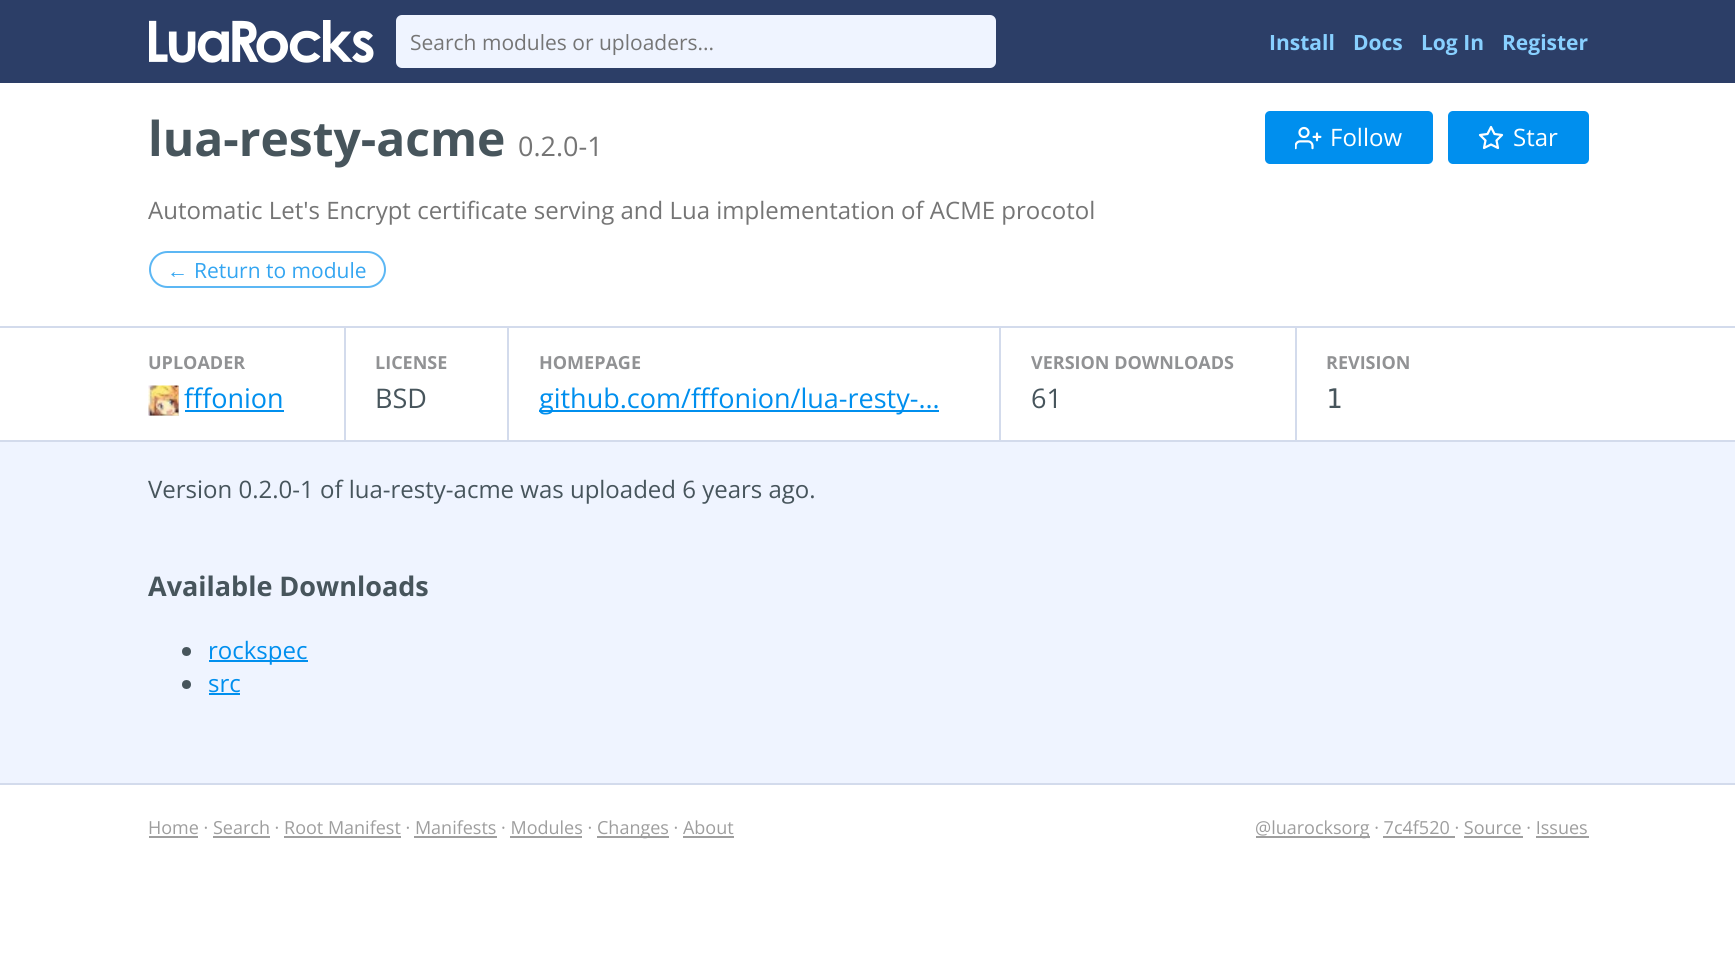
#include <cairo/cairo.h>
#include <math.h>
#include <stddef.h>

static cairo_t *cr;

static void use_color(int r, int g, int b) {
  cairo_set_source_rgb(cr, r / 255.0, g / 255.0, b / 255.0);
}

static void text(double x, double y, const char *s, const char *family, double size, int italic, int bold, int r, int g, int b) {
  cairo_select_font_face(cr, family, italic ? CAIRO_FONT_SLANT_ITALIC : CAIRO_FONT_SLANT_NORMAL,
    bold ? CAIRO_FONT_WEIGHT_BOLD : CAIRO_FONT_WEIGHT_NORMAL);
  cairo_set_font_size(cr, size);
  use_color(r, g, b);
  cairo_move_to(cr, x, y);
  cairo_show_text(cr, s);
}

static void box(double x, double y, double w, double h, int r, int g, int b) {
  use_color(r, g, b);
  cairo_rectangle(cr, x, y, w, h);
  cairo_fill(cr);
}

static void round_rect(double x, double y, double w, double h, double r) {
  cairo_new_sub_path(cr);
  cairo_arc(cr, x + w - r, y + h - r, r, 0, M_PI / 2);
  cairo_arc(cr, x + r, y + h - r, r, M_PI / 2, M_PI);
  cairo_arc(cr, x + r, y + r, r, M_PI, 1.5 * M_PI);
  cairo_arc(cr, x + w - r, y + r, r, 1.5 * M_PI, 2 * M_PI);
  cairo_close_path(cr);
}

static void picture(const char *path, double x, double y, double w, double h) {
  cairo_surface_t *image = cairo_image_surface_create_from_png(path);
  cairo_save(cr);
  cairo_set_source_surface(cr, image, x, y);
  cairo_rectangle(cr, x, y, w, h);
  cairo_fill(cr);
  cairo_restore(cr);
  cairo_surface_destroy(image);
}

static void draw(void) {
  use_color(255, 255, 255);
  cairo_paint(cr);
  box(0, 442, 1735, 341, 239, 244, 255);
  box(0, 783, 1735, 2, 211, 219, 236);
  box(0, 0, 1735, 83, 44, 62, 103);
  picture("img_01.png", 149, 20, 225, 43);
  use_color(239, 244, 255);
  round_rect(396, 15, 600, 53, 6);
  cairo_fill(cr);
  box(0, 440, 1735, 2, 211, 219, 236);
  use_color(0, 143, 238);
  round_rect(1265, 111, 168, 53, 5);
  cairo_fill(cr);
  picture("img_02.png", 1295, 126, 27, 24);
  round_rect(1448, 111, 141, 53, 5);
  cairo_fill(cr);
  cairo_new_path(cr);
  cairo_move_to(cr, 1491, 127);
  cairo_line_to(cr, 1494.5, 134);
  cairo_line_to(cr, 1502, 135);
  cairo_line_to(cr, 1496.5, 140.5);
  cairo_line_to(cr, 1498, 148);
  cairo_line_to(cr, 1491, 144.5);
  cairo_line_to(cr, 1484, 148);
  cairo_line_to(cr, 1485.5, 140.5);
  cairo_line_to(cr, 1480, 135);
  cairo_line_to(cr, 1487.5, 134);
  cairo_close_path(cr);
  use_color(255, 255, 255);
  cairo_set_line_width(cr, 2.2);
  cairo_set_line_cap(cr, CAIRO_LINE_CAP_ROUND);
  cairo_set_line_join(cr, CAIRO_LINE_JOIN_ROUND);
  cairo_stroke(cr);
  round_rect(150, 252, 235, 35, 17.5);
  use_color(92, 183, 244);
  cairo_set_line_width(cr, 2);
  cairo_set_line_cap(cr, CAIRO_LINE_CAP_BUTT);
  cairo_set_line_join(cr, CAIRO_LINE_JOIN_MITER);
  cairo_stroke(cr);
  box(0, 326, 1735, 2, 211, 219, 236);
  box(149, 386, 30, 30, 217, 217, 217);
  picture("img_03.png", 148, 385, 31, 31);
  box(185, 410, 99, 2, 0, 143, 238);
  box(344, 327, 2, 113, 211, 219, 236);
  box(507, 327, 2, 113, 211, 219, 236);
  box(539, 410, 400, 2, 0, 143, 238);
  box(999, 327, 2, 113, 211, 219, 236);
  box(1295, 327, 2, 113, 211, 219, 236);
  use_color(71, 85, 92);
  cairo_arc(cr, 186.5, 651.5, 4.5, 0, 2 * M_PI);
  cairo_fill(cr);
  box(209, 660, 99, 2, 0, 143, 238);
  use_color(71, 85, 92);
  cairo_arc(cr, 186.5, 684.5, 4.5, 0, 2 * M_PI);
  cairo_fill(cr);
  box(209, 693, 31, 2, 0, 143, 238);
  box(149, 836, 49, 2, 158, 158, 158);
  box(597, 836, 72, 2, 158, 158, 158);
  box(213, 836, 57, 2, 158, 158, 158);
  box(284, 836, 117, 2, 158, 158, 158);
  box(414, 836, 83, 2, 158, 158, 158);
  box(510, 836, 72, 2, 158, 158, 158);
  box(683, 836, 51, 2, 158, 158, 158);
  box(1256, 836, 114, 2, 158, 158, 158);
  box(1383, 836, 72, 2, 158, 158, 158);
  box(1464, 836, 59, 2, 158, 158, 158);
  box(1536, 836, 53, 2, 158, 158, 158);
  text(410, 50, "Search modules or uploaders...", "Open Sans", 21, 0, 0, 117, 117, 117);
  text(1269, 50, "Install", "Open Sans", 21, 0, 1, 136, 208, 255);
  text(1353, 50, "Docs", "Open Sans", 21, 0, 1, 136, 208, 255);
  text(1421, 50, "Log In", "Open Sans", 21, 0, 1, 136, 208, 255);
  text(1502, 50, "Register", "Open Sans", 21, 0, 1, 136, 208, 255);
  text(148, 156, "lua-resty-acme", "Open Sans", 48, 0, 1, 71, 85, 92);
  text(518, 156, "0.2.0-1", "Open Sans", 27, 0, 0, 117, 117, 117);
  text(1330, 146, "Follow", "Open Sans", 24, 0, 0, 255, 255, 255);
  text(1513, 146, "Star", "Open Sans", 24, 0, 0, 255, 255, 255);
  text(148, 219, "Automatic Let's Encrypt certificate serving and Lua implementation of ACME procotol", "Open Sans", 24, 0, 0, 117, 117, 117);
  text(167, 278, "←", "Liberation Sans", 21, 0, 0, 51, 165, 241);
  text(194, 278, "Return to module", "Open Sans", 21, 0, 0, 51, 165, 241);
  text(148, 369, "UPLOADER", "Open Sans", 18, 0, 1, 145, 146, 148);
  text(184, 408, "fffonion", "Open Sans", 27, 0, 0, 0, 143, 238);
  text(375, 369, "LICENSE", "Open Sans", 18, 0, 1, 145, 146, 148);
  text(375, 408, "BSD", "Open Sans", 27, 0, 0, 71, 85, 92);
  text(539, 369, "HOMEPAGE", "Open Sans", 18, 0, 1, 145, 146, 148);
  text(539, 408, "github.com/fffonion/lua-resty-...", "Open Sans", 27, 0, 0, 0, 143, 238);
  text(1031, 369, "VERSION DOWNLOADS", "Open Sans", 18, 0, 1, 145, 146, 148);
  text(1031, 408, "61", "Open Sans", 27, 0, 0, 71, 85, 92);
  text(1326, 369, "REVISION", "Open Sans", 18, 0, 1, 145, 146, 148);
  text(1326, 408, "1", "DejaVu Sans Mono", 27, 0, 0, 71, 85, 92);
  text(148, 498, "Version 0.2.0-1 of lua-resty-acme was uploaded 6 years ago.", "Open Sans", 24, 0, 0, 71, 85, 92);
  text(148, 596, "Available Downloads", "Open Sans", 27, 0, 1, 71, 85, 92);
  text(208, 659, "rockspec", "Open Sans", 24, 0, 0, 0, 143, 238);
  text(208, 692, "src", "Open Sans", 24, 0, 0, 0, 143, 238);
  text(148, 834, "Home · Search · Root Manifest · Manifests · Modules ·", "Open Sans", 18, 0, 0, 158, 158, 158);
  text(597, 834, "Changes · About", "Open Sans", 18, 0, 0, 158, 158, 158);
  text(1255, 834, "@luarocksorg · 7c4f520 · Source · Issues", "Open Sans", 18, 0, 0, 158, 158, 158);
}

int main(void) {
  cairo_surface_t *surface = cairo_image_surface_create(CAIRO_FORMAT_RGB24, 1735, 957);
  cr = cairo_create(surface);
  cairo_font_options_t *options = cairo_font_options_create();
  cairo_font_options_set_hint_metrics(options, CAIRO_HINT_METRICS_OFF);
  cairo_font_options_set_hint_style(options, CAIRO_HINT_STYLE_NONE);
  cairo_set_font_options(cr, options);
  cairo_set_miter_limit(cr, 4);
  draw();
  cairo_surface_write_to_png(surface, "out.png");
  cairo_font_options_destroy(options);
  cairo_destroy(cr);
  cairo_surface_destroy(surface);
  return 0;
}
